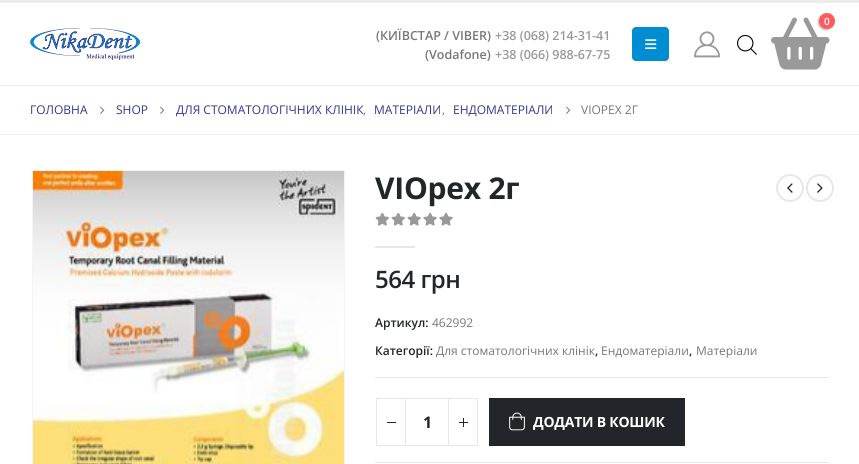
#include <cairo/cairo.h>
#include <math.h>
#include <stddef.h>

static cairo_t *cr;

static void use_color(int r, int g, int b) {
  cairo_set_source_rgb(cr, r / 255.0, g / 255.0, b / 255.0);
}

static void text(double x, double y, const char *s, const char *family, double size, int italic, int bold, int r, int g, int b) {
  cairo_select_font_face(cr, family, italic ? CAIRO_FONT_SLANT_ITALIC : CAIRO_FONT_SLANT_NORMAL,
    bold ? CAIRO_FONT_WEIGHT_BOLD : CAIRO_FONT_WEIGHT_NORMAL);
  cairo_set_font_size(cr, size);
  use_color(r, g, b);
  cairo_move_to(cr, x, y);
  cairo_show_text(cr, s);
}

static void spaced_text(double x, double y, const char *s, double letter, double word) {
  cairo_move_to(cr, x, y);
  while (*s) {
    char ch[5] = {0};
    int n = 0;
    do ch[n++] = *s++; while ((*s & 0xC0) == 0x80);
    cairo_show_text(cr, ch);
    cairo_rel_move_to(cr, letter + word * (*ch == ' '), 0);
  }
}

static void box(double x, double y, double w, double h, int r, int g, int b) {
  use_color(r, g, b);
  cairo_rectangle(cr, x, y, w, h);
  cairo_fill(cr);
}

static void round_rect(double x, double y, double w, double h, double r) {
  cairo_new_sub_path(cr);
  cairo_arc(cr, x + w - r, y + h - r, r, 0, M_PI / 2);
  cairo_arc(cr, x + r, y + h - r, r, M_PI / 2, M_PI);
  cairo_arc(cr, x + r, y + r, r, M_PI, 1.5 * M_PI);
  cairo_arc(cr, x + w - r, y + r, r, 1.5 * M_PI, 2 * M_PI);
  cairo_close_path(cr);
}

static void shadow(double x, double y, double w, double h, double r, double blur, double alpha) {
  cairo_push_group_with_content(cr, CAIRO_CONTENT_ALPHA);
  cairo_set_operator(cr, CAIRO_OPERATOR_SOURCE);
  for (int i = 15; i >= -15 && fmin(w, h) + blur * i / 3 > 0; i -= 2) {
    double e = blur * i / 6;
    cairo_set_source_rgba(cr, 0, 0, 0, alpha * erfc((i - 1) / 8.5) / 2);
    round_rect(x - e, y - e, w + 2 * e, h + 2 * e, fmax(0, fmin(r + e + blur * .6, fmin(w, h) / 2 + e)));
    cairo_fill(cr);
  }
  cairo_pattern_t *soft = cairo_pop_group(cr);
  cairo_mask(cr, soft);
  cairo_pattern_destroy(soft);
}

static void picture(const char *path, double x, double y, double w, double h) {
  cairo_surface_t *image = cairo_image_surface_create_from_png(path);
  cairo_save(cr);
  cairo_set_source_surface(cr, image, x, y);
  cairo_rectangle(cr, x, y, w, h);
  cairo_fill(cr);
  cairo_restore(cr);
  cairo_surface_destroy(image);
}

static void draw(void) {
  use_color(255, 255, 255);
  cairo_paint(cr);
  box(0, 0, 859, 3, 237, 237, 237);
  picture("img_01.png", 30, 28, 110, 32);
  picture("img_02.png", 771, 17, 59, 53);
  use_color(0, 0, 0);
  shadow(818, 14, 16, 16, 8, 1, 0.3);
  use_color(255, 91, 91);
  cairo_arc(cr, 827, 21, 8, 0, 2 * M_PI);
  cairo_fill(cr);
  use_color(0, 141, 210);
  round_rect(632, 27, 37, 34, 4);
  cairo_fill(cr);
  picture("img_03.png", 645, 39, 12, 10);
  picture("img_04.png", 694, 31, 26, 27);
  picture("img_05.png", 737, 35, 20, 20);
  box(0, 85, 859, 1, 238, 238, 238);
  box(0, 134, 859, 1, 238, 238, 238);
  picture("img_06.png", 100, 106, 5, 8);
  picture("img_06.png", 160, 106, 5, 8);
  picture("img_06.png", 566, 106, 5, 8);
  cairo_rectangle(cr, 32.5, 170.5, 312, 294);
  use_color(244, 244, 244);
  cairo_set_line_width(cr, 1);
  cairo_stroke(cr);
  picture("img_07.png", 33, 171, 311, 293);
  cairo_arc(cr, 790, 188, 13, 0, 2 * M_PI);
  use_color(231, 231, 231);
  cairo_set_line_width(cr, 2);
  cairo_stroke(cr);
  picture("img_08.png", 787, 183, 6, 10);
  cairo_arc(cr, 820, 188, 13, 0, 2 * M_PI);
  cairo_stroke(cr);
  picture("img_09.png", 817, 183, 6, 10);
  picture("img_10.png", 375, 213, 78, 13);
  box(375, 246, 40, 2, 231, 231, 231);
  box(375, 377, 454, 1, 231, 231, 231);
  box(375, 462, 454, 1, 231, 231, 231);
  box(405, 398, 44, 1, 231, 231, 231);
  box(405, 445, 44, 1, 231, 231, 231);
  cairo_rectangle(cr, 376.5, 398.5, 29, 47);
  cairo_set_line_width(cr, 1);
  cairo_stroke(cr);
  box(387, 422, 9, 1, 34, 37, 41);
  cairo_rectangle(cr, 448.5, 398.5, 29, 47);
  use_color(231, 231, 231);
  cairo_stroke(cr);
  box(459, 422, 9, 1, 34, 37, 41);
  box(463, 418, 1, 9, 34, 37, 41);
  box(489, 398, 196, 48, 34, 37, 41);
  picture("img_11.png", 509, 412, 16, 19);
  text(824, 25, "0", "Open Sans SemiBold", 10, 0, 0, 255, 255, 255);
  text(376, 40, "(КИЇВСТАР / VIBER)", "Open Sans SemiBold", 12.5, 0, 0, 119, 119, 119);
  text(495, 40, "+38 (068) 214-31-41", "Open Sans SemiBold", 12.5, 0, 0, 153, 153, 153);
  text(425, 59, "(Vodafone)", "Open Sans SemiBold", 12.5, 0, 0, 119, 119, 119);
  text(495, 59, "+38 (066) 988-67-75", "Open Sans SemiBold", 12.5, 0, 0, 153, 153, 153);
  text(30, 114, "ГОЛОВНА", "Open Sans", 12, 0, 0, 52, 56, 139);
  text(116, 114, "SHOP", "Open Sans", 12, 0, 0, 52, 56, 139);
  text(176, 114, "ДЛЯ СТОМАТОЛОГІЧНИХ КЛІНІК", "Open Sans", 12, 0, 0, 52, 56, 139);
  text(363, 114, ",", "Open Sans", 12, 0, 0, 119, 119, 119);
  text(374, 114, "МАТЕРІАЛИ", "Open Sans", 12, 0, 0, 52, 56, 139);
  text(442, 114, ",", "Open Sans", 12, 0, 0, 119, 119, 119);
  text(453, 114, "ЕНДОМАТЕРІАЛИ", "Open Sans", 12, 0, 0, 52, 56, 139);
  text(581, 114, "VIOPEX 2Г", "Open Sans", 12, 0, 0, 119, 119, 119);
  cairo_select_font_face(cr, "Open Sans", CAIRO_FONT_SLANT_NORMAL, CAIRO_FONT_WEIGHT_BOLD);
  cairo_set_font_size(cr, 30);
  use_color(34, 37, 41);
  spaced_text(375, 199, "VIOpex 2г", -0.25, 0);
  cairo_select_font_face(cr, "Open Sans SemiBold", CAIRO_FONT_SLANT_NORMAL, CAIRO_FONT_WEIGHT_NORMAL);
  cairo_set_font_size(cr, 24);
  spaced_text(375, 288, "564 грн", -0.5, 0);
  text(375, 327, "Артикул:", "Open Sans SemiBold", 12, 0, 0, 34, 37, 41);
  text(432, 327, "462992", "Open Sans", 12, 0, 0, 119, 119, 119);
  text(375, 355, "Категорії:", "Open Sans SemiBold", 12, 0, 0, 34, 37, 41);
  text(436, 355, "Для стоматологічних клінік", "Open Sans", 12, 0, 0, 119, 119, 119);
  text(595, 355, ",", "Open Sans SemiBold", 12, 0, 0, 34, 37, 41);
  text(601, 355, "Ендоматеріали", "Open Sans", 12, 0, 0, 119, 119, 119);
  text(689, 355, ",", "Open Sans SemiBold", 12, 0, 0, 34, 37, 41);
  text(696, 355, "Матеріали", "Open Sans", 12, 0, 0, 119, 119, 119);
  text(423, 428, "1", "Open Sans", 16, 0, 1, 34, 37, 41);
  cairo_set_font_size(cr, 14);
  use_color(255, 255, 255);
  spaced_text(533, 427, "ДОДАТИ В КОШИК", -0.25, 0);
}

int main(void) {
  cairo_surface_t *surface = cairo_image_surface_create(CAIRO_FORMAT_RGB24, 859, 464);
  cr = cairo_create(surface);
  cairo_font_options_t *options = cairo_font_options_create();
  cairo_font_options_set_hint_metrics(options, CAIRO_HINT_METRICS_OFF);
  cairo_font_options_set_hint_style(options, CAIRO_HINT_STYLE_NONE);
  cairo_set_font_options(cr, options);
  cairo_set_miter_limit(cr, 4);
  draw();
  cairo_surface_write_to_png(surface, "out.png");
  cairo_font_options_destroy(options);
  cairo_destroy(cr);
  cairo_surface_destroy(surface);
  return 0;
}
